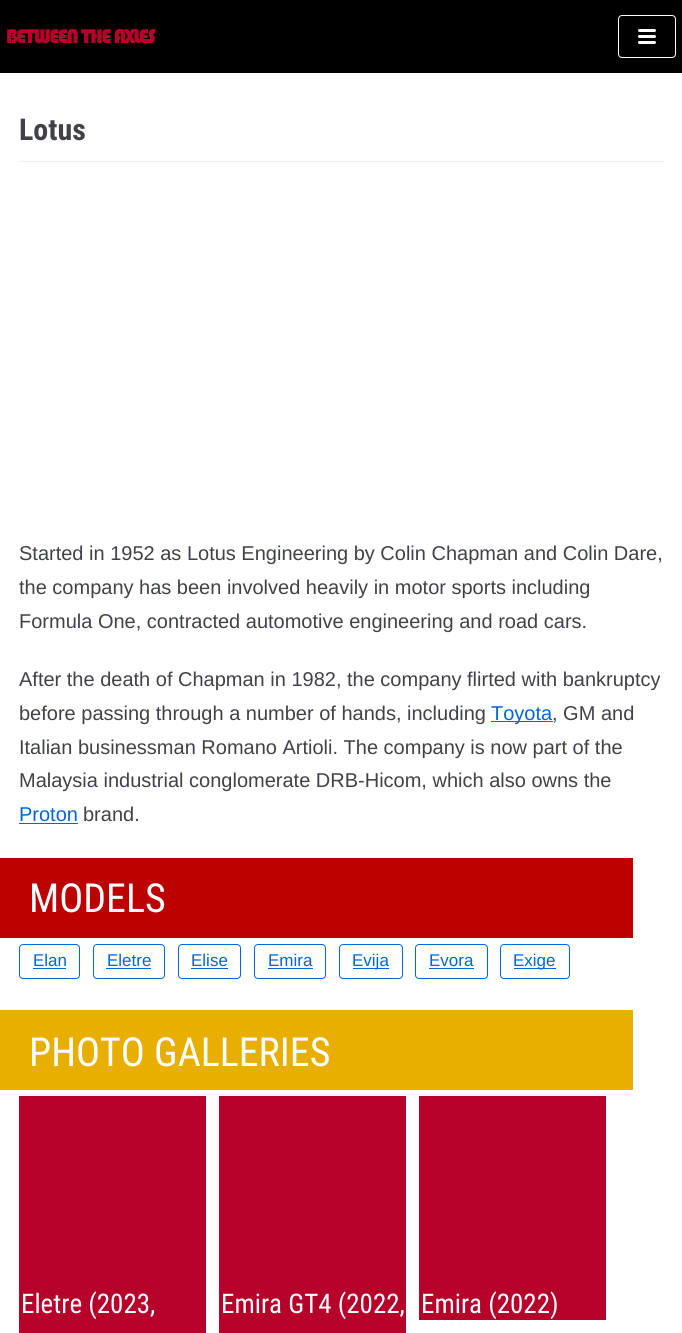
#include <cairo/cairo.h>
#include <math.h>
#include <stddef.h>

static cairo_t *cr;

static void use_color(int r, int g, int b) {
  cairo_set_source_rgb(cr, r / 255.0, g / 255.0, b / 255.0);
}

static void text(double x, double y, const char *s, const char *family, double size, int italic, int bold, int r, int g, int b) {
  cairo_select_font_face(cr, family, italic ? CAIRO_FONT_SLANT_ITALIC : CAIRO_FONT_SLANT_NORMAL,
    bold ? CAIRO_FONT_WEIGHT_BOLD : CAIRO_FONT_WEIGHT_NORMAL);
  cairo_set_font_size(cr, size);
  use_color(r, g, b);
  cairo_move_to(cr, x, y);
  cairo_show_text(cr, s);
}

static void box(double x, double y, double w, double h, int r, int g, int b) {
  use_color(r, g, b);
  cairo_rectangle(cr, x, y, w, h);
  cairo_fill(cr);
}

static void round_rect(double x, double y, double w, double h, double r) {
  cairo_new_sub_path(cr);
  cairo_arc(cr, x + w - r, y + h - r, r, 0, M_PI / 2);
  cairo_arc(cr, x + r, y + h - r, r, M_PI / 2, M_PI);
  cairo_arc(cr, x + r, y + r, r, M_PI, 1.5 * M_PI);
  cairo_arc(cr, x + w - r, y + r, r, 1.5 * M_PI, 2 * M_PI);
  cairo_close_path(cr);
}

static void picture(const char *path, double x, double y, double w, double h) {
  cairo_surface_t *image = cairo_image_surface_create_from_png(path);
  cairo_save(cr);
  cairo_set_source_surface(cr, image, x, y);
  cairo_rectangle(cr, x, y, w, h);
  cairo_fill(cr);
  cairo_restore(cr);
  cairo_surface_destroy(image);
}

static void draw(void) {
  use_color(0, 0, 0);
  cairo_paint(cr);
  picture("img_01.png", 7, 28, 149, 16);
  round_rect(618.5, 15.5, 57, 42, 3.5);
  use_color(255, 255, 255);
  cairo_set_line_width(cr, 1);
  cairo_stroke(cr);
  round_rect(638, 29, 18, 3, 1.5);
  cairo_fill(cr);
  round_rect(638, 35, 18, 3, 1.5);
  cairo_fill(cr);
  round_rect(638, 41, 18, 3, 1.5);
  cairo_fill(cr);
  box(0, 73, 682, 1260, 255, 255, 255);
  box(19, 161, 645, 1, 240, 240, 240);
  box(491, 721, 62, 1, 3, 102, 214);
  box(19, 823, 59, 1, 3, 102, 214);
  box(0, 858, 633, 80, 189, 0, 0);
  round_rect(19.5, 944.5, 60, 34, 3.5);
  use_color(3, 102, 214);
  cairo_stroke(cr);
  box(33, 968, 33, 1, 3, 102, 214);
  round_rect(93.5, 944.5, 71, 34, 3.5);
  cairo_stroke(cr);
  box(106, 968, 45, 1, 3, 102, 214);
  round_rect(178.5, 944.5, 62, 34, 3.5);
  cairo_stroke(cr);
  box(191, 968, 37, 1, 3, 102, 214);
  round_rect(254.5, 944.5, 71, 34, 3.5);
  cairo_stroke(cr);
  box(268, 968, 45, 1, 3, 102, 214);
  round_rect(339.5, 944.5, 63, 34, 3.5);
  cairo_stroke(cr);
  box(353, 968, 36, 1, 3, 102, 214);
  round_rect(415.5, 944.5, 72, 34, 3.5);
  cairo_stroke(cr);
  box(429, 968, 45, 1, 3, 102, 214);
  round_rect(500.5, 944.5, 69, 34, 3.5);
  cairo_stroke(cr);
  box(514, 968, 42, 1, 3, 102, 214);
  box(0, 1010, 633, 80, 232, 175, 0);
  box(19, 1096, 187, 237, 182, 1, 43);
  box(219, 1096, 187, 237, 182, 1, 43);
  box(419, 1096, 187, 224, 182, 1, 43);
  text(19, 140, "Lotus", "Roboto Condensed", 30, 0, 1, 64, 66, 72);
  text(19, 560, "Started in 1952 as Lotus Engineering by Colin Chapman and Colin Dare,", "Liberation Sans", 20, 0, 0, 64, 66, 72);
  text(19, 594, "the company has been involved heavily in motor sports including", "Liberation Sans", 20, 0, 0, 64, 66, 72);
  text(19, 628, "Formula One, contracted automotive engineering and road cars.", "Liberation Sans", 20, 0, 0, 64, 66, 72);
  text(19, 686, "After the death of Chapman in 1982, the company flirted with bankruptcy", "Liberation Sans", 20, 0, 0, 64, 66, 72);
  text(19, 720, "before passing through a number of hands, including", "Liberation Sans", 20, 0, 0, 64, 66, 72);
  text(491, 720, "Toyota", "Liberation Sans", 20, 0, 0, 3, 102, 214);
  text(552, 720, ", GM and", "Liberation Sans", 20, 0, 0, 64, 66, 72);
  text(19, 754, "Italian businessman Romano Artioli. The company is now part of the", "Liberation Sans", 20, 0, 0, 64, 66, 72);
  text(19, 787, "Malaysia industrial conglomerate DRB-Hicom, which also owns the", "Liberation Sans", 20, 0, 0, 64, 66, 72);
  text(19, 821, "Proton", "Liberation Sans", 20, 0, 0, 3, 102, 214);
  text(83, 821, "brand.", "Liberation Sans", 20, 0, 0, 64, 66, 72);
  text(29, 912, "MODELS", "Roboto Condensed", 40, 0, 0, 255, 255, 255);
  text(33, 966, "Elan", "Liberation Sans", 17, 0, 0, 3, 102, 214);
  text(107, 966, "Eletre", "Liberation Sans", 17, 0, 0, 3, 102, 214);
  text(191, 966, "Elise", "Liberation Sans", 17, 0, 0, 3, 102, 214);
  text(268, 966, "Emira", "Liberation Sans", 17, 0, 0, 3, 102, 214);
  text(352, 966, "Evija", "Liberation Sans", 17, 0, 0, 3, 102, 214);
  text(429, 966, "Evora", "Liberation Sans", 17, 0, 0, 3, 102, 214);
  text(513, 966, "Exige", "Liberation Sans", 17, 0, 0, 3, 102, 214);
  text(29, 1066, "PHOTO GALLERIES", "Roboto Condensed", 40, 0, 0, 255, 255, 255);
  text(21, 1313, "Eletre (2023,", "Roboto Condensed", 27, 0, 0, 255, 255, 255);
  text(221, 1313, "Emira GT4 (2022,", "Roboto Condensed", 27, 0, 0, 255, 255, 255);
  text(421, 1313, "Emira (2022)", "Roboto Condensed", 27, 0, 0, 255, 255, 255);
}

int main(void) {
  cairo_surface_t *surface = cairo_image_surface_create(CAIRO_FORMAT_RGB24, 682, 1333);
  cr = cairo_create(surface);
  cairo_font_options_t *options = cairo_font_options_create();
  cairo_font_options_set_hint_metrics(options, CAIRO_HINT_METRICS_OFF);
  cairo_font_options_set_hint_style(options, CAIRO_HINT_STYLE_NONE);
  cairo_set_font_options(cr, options);
  cairo_set_miter_limit(cr, 4);
  draw();
  cairo_surface_write_to_png(surface, "out.png");
  cairo_font_options_destroy(options);
  cairo_destroy(cr);
  cairo_surface_destroy(surface);
  return 0;
}
